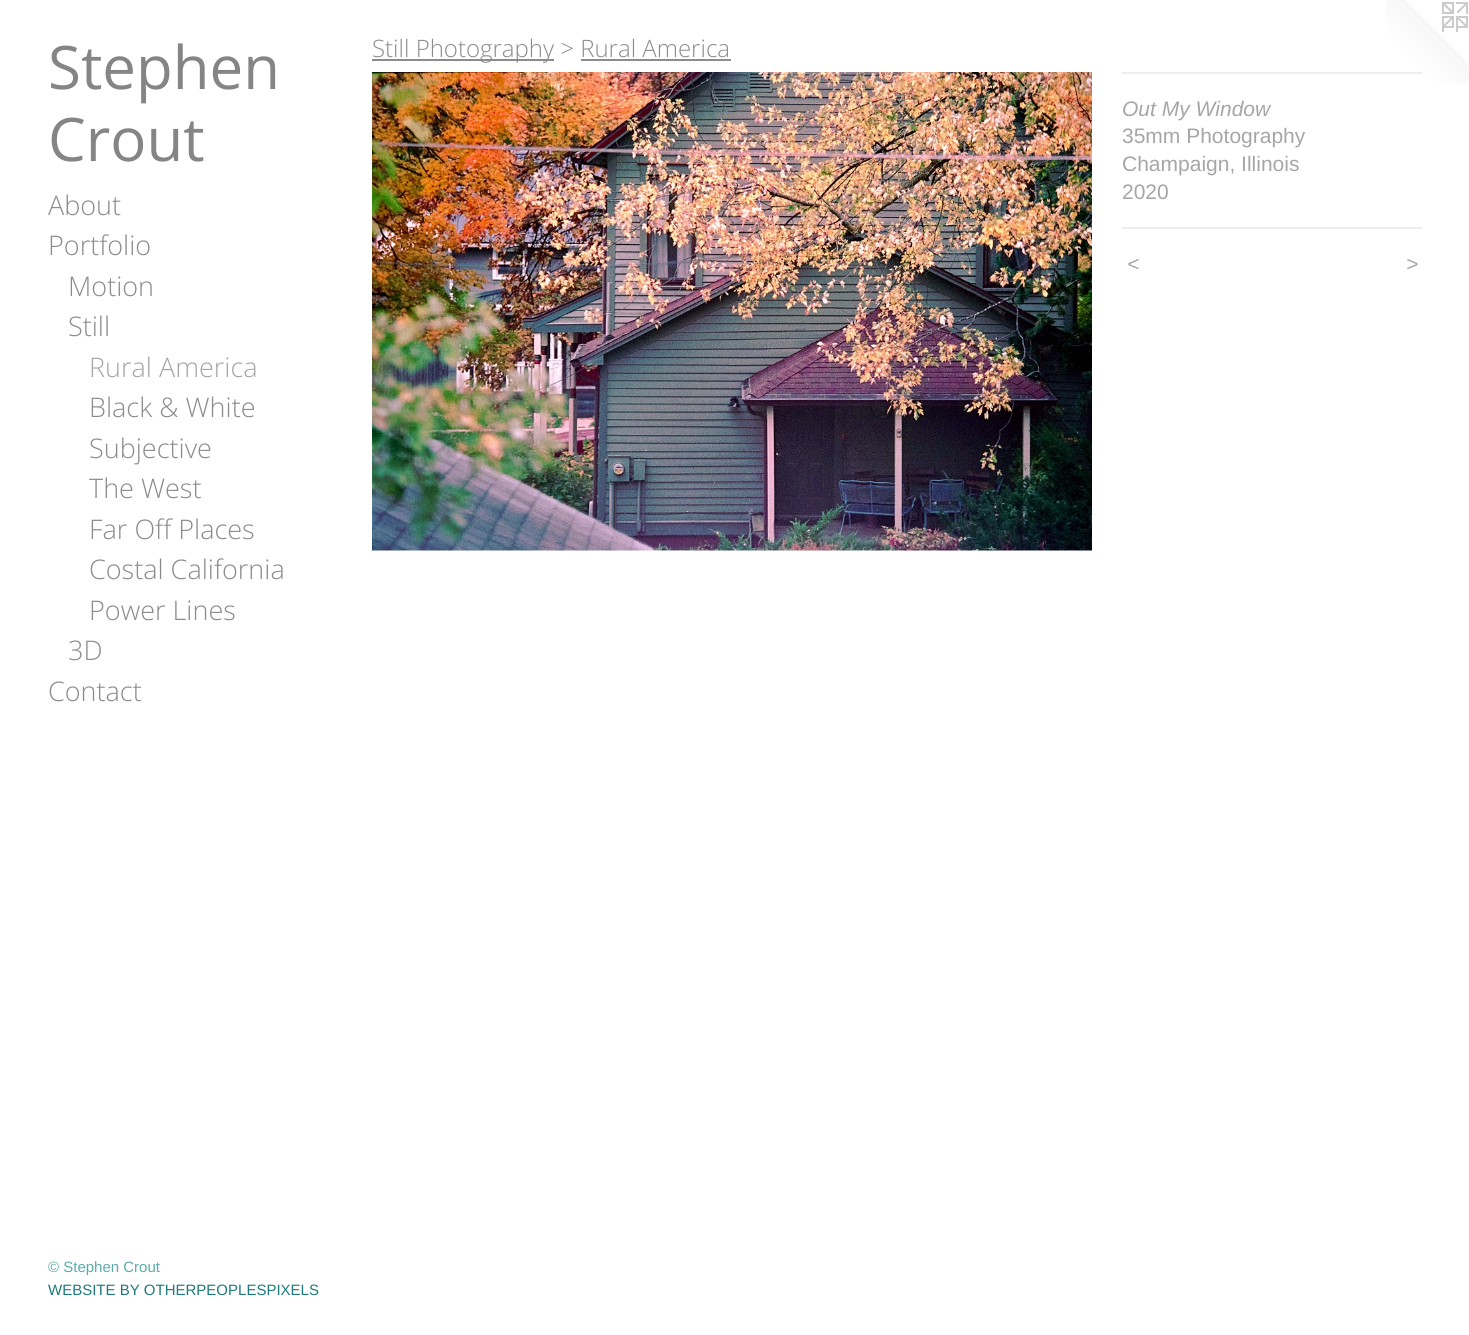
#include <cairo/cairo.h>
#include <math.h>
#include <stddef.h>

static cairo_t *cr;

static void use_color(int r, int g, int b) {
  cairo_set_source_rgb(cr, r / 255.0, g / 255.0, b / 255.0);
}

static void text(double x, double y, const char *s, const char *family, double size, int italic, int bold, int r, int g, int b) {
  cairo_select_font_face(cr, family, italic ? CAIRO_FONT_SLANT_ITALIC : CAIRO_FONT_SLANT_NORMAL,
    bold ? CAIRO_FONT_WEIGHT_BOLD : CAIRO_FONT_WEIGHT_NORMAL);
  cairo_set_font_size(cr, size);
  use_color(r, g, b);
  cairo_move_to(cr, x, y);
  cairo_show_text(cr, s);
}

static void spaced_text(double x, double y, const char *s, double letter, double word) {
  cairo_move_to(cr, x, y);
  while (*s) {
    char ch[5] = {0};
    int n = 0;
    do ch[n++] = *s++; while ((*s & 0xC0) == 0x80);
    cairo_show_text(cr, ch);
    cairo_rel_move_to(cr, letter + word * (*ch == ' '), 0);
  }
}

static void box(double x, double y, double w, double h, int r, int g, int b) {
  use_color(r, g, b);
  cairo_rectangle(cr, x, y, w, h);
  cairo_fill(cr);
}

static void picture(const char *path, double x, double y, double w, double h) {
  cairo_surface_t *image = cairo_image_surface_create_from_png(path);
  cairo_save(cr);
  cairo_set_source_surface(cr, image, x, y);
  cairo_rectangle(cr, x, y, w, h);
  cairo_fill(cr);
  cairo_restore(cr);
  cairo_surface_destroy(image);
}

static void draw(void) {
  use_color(255, 255, 255);
  cairo_paint(cr);
  box(372, 59, 182, 2, 140, 140, 140);
  box(581, 59, 150, 2, 140, 140, 140);
  picture("img_01.png", 372, 72, 720, 479);
  picture("img_02.png", 1386, 0, 83, 83);
  box(1122, 72, 300, 2, 238, 238, 238);
  box(1122, 227, 300, 2, 238, 238, 238);
  text(48, 89, "Stephen", "Open Sans", 60, 0, 0, 133, 133, 133);
  text(48, 161, "Crout", "Open Sans", 60, 0, 0, 133, 133, 133);
  text(48, 215, "About", "Open Sans Light", 27, 0, 0, 140, 140, 140);
  text(48, 255, "Portfolio", "Open Sans Light", 27, 0, 0, 140, 140, 140);
  text(68, 296, "Motion", "Open Sans Light", 27, 0, 0, 140, 140, 140);
  text(68, 336, "Still", "Open Sans Light", 27, 0, 0, 140, 140, 140);
  text(89, 377, "Rural America", "Open Sans Light", 27, 0, 0, 166, 166, 166);
  text(89, 417, "Black & White", "Open Sans Light", 27, 0, 0, 140, 140, 140);
  text(89, 458, "Subjective", "Open Sans Light", 27, 0, 0, 140, 140, 140);
  text(89, 498, "The West", "Open Sans Light", 27, 0, 0, 140, 140, 140);
  text(89, 539, "Far Off Places", "Open Sans Light", 27, 0, 0, 140, 140, 140);
  text(89, 579, "Costal California", "Open Sans Light", 27, 0, 0, 140, 140, 140);
  text(89, 620, "Power Lines", "Open Sans Light", 27, 0, 0, 140, 140, 140);
  text(68, 660, "3D", "Open Sans Light", 27, 0, 0, 140, 140, 140);
  text(48, 701, "Contact", "Open Sans Light", 27, 0, 0, 140, 140, 140);
  text(48, 1272, "© Stephen Crout", "Liberation Sans", 15, 0, 0, 93, 171, 171);
  text(48, 1295, "WEBSITE BY OTHERPEOPLESPIXELS", "Liberation Sans", 15, 0, 0, 30, 122, 122);
  text(372, 57, "Still Photography > Rural America", "Open Sans Light", 24, 0, 0, 140, 140, 140);
  text(1122, 116, "Out My Window", "Liberation Sans", 21, 1, 0, 166, 166, 166);
  text(1122, 143, "35mm Photography", "Liberation Sans", 21, 0, 0, 166, 166, 166);
  text(1122, 171, "Champaign, Illinois", "Liberation Sans", 21, 0, 0, 166, 166, 166);
  text(1122, 199, "2020", "Liberation Sans", 21, 0, 0, 166, 166, 166);
  cairo_select_font_face(cr, "Liberation Sans", CAIRO_FONT_SLANT_ITALIC, CAIRO_FONT_WEIGHT_NORMAL);
  spaced_text(1127, 271, "<", 2, 0);
  spaced_text(1406, 271, ">", 2, 0);
}

int main(void) {
  cairo_surface_t *surface = cairo_image_surface_create(CAIRO_FORMAT_RGB24, 1469, 1335);
  cr = cairo_create(surface);
  cairo_font_options_t *options = cairo_font_options_create();
  cairo_font_options_set_hint_metrics(options, CAIRO_HINT_METRICS_OFF);
  cairo_font_options_set_hint_style(options, CAIRO_HINT_STYLE_NONE);
  cairo_set_font_options(cr, options);
  cairo_set_miter_limit(cr, 4);
  draw();
  cairo_surface_write_to_png(surface, "out.png");
  cairo_font_options_destroy(options);
  cairo_destroy(cr);
  cairo_surface_destroy(surface);
  return 0;
}
